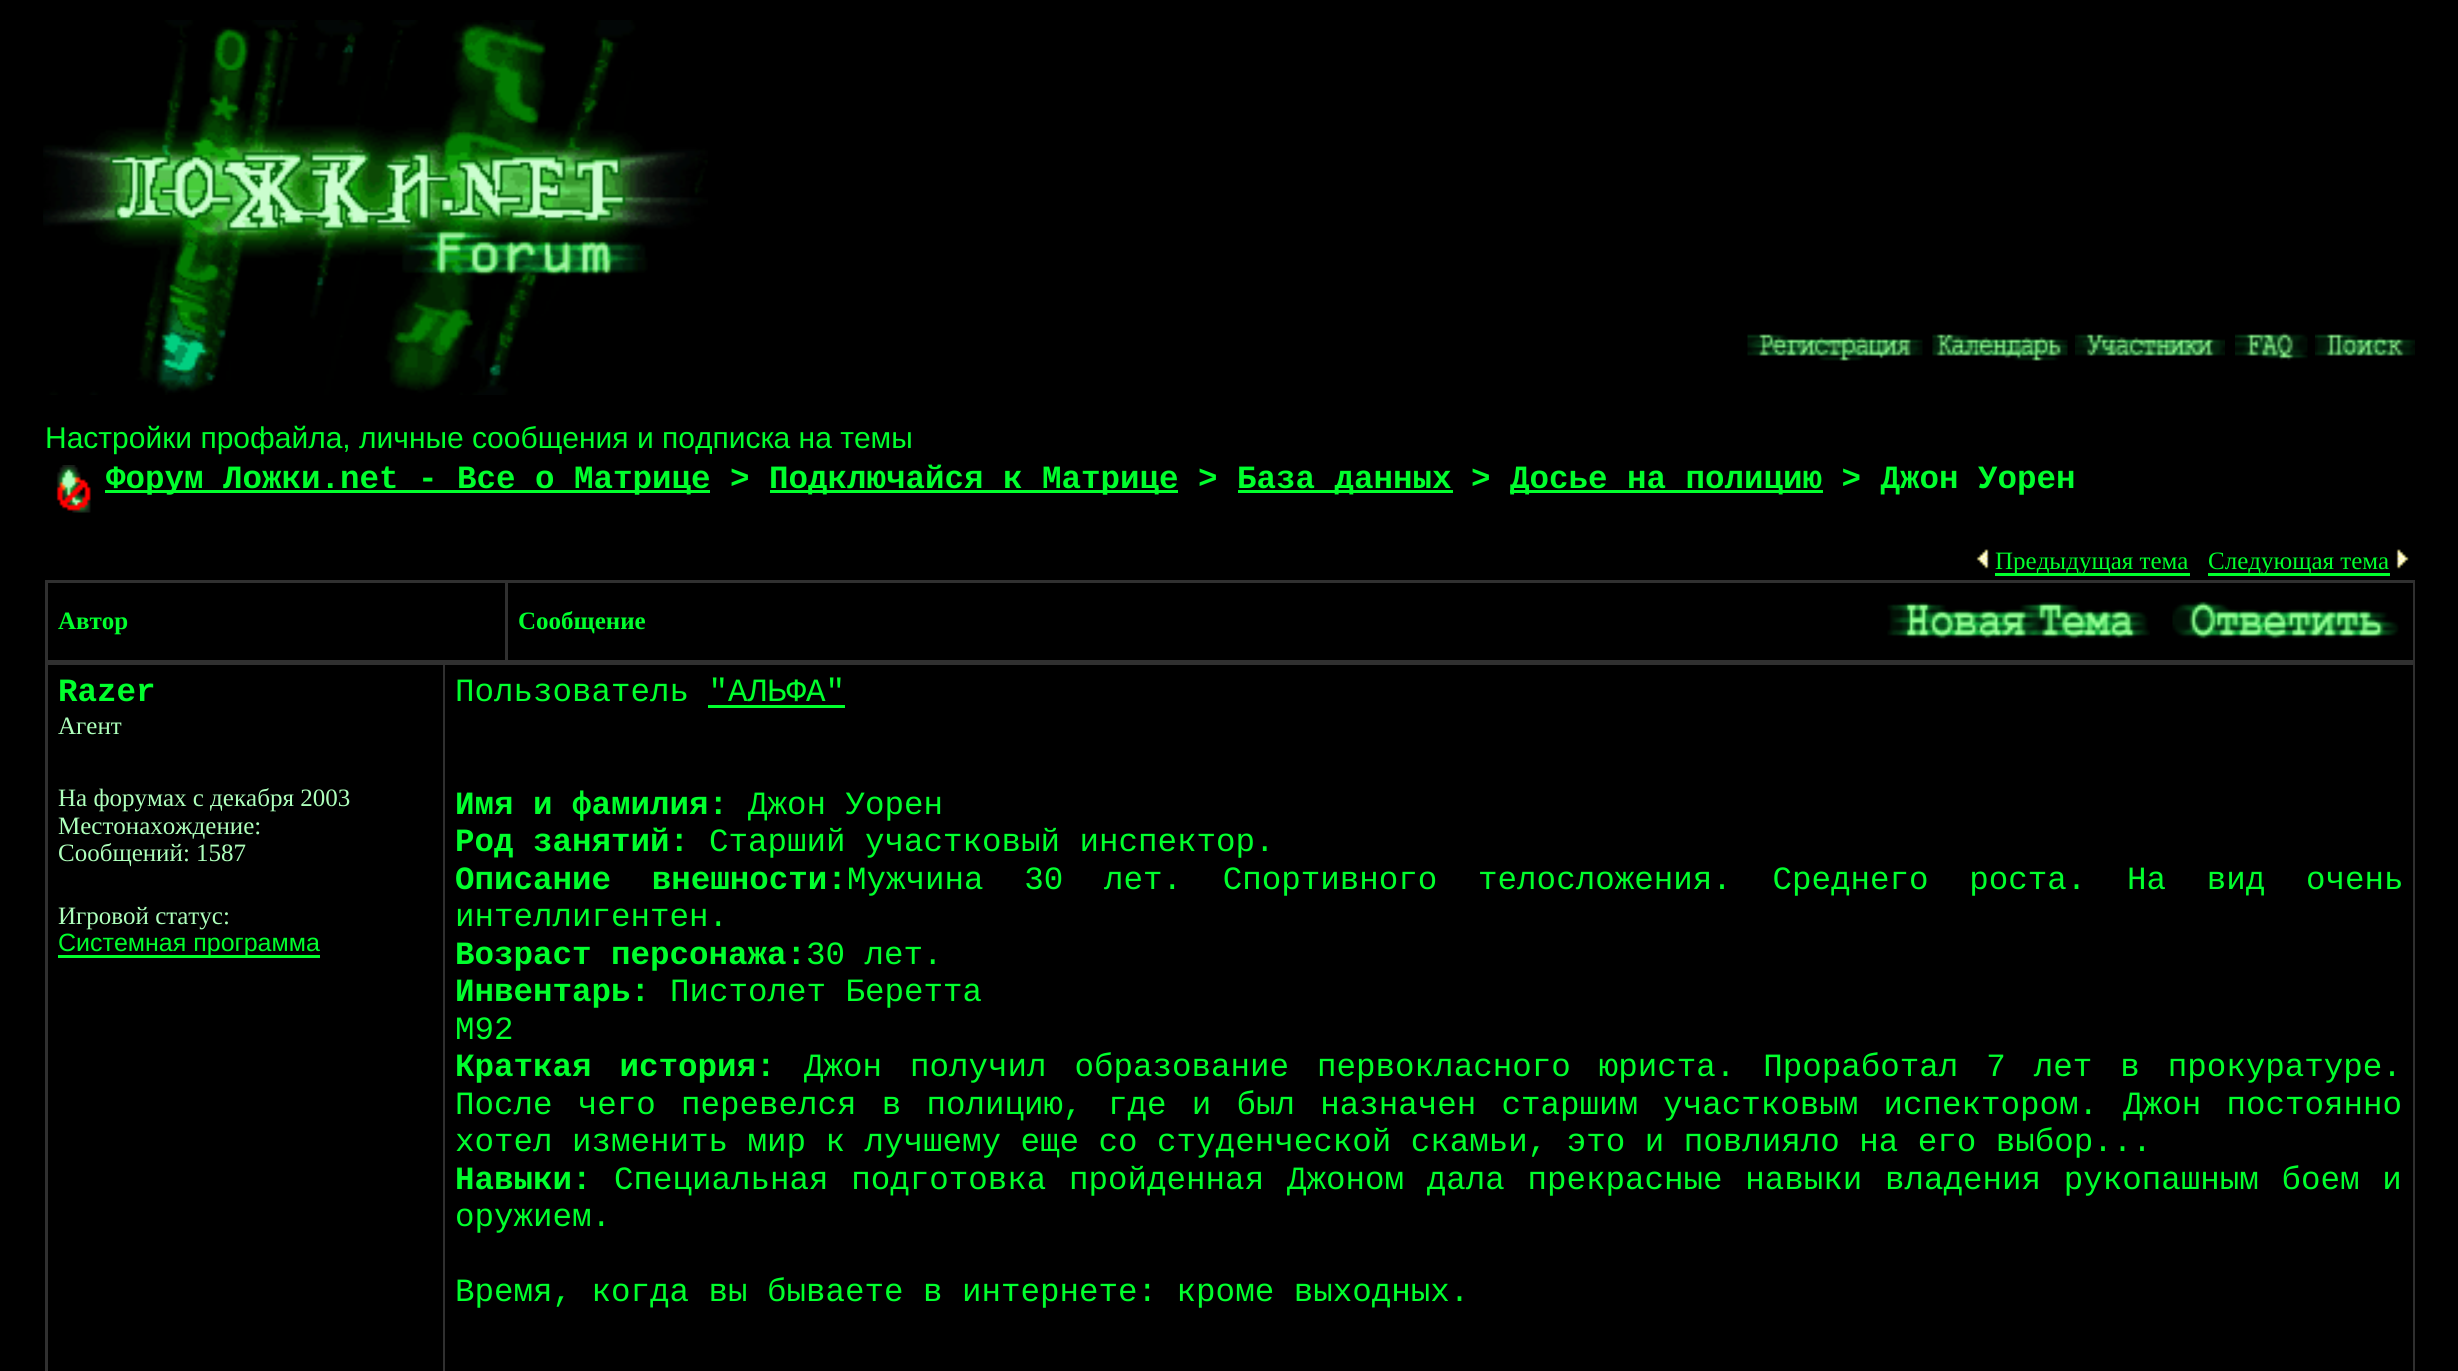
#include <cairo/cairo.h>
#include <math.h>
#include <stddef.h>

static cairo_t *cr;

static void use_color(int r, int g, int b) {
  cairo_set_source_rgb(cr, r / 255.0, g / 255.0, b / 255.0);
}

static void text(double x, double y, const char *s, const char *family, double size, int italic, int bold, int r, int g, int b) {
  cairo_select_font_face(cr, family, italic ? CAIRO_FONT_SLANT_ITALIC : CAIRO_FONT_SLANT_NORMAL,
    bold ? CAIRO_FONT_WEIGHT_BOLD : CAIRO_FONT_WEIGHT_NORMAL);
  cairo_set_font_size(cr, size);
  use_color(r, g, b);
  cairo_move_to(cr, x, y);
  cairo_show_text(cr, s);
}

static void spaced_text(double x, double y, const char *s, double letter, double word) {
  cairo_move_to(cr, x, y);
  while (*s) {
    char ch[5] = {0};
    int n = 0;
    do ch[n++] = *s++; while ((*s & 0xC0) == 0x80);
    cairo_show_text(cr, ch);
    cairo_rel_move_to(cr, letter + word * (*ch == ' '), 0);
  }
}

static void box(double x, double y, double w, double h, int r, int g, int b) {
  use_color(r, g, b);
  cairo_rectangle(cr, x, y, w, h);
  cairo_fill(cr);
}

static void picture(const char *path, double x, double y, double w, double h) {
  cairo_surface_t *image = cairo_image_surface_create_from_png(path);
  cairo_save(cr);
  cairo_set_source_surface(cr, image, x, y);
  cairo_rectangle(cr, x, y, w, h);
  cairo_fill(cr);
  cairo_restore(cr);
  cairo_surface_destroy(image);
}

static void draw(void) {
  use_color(0, 0, 0);
  cairo_paint(cr);
  picture("img_01.png", 43, 20, 665, 375);
  picture("img_02.png", 1747, 334, 176, 27);
  picture("img_03.png", 1932, 334, 136, 27);
  picture("img_04.png", 2075, 334, 150, 22);
  picture("img_05.png", 2235, 332, 73, 29);
  picture("img_06.png", 2315, 334, 100, 22);
  picture("img_07.png", 56, 465, 35, 48);
  box(105, 490, 605, 3, 0, 255, 45);
  box(770, 490, 408, 3, 0, 255, 45);
  box(1238, 490, 215, 3, 0, 255, 45);
  box(1510, 490, 313, 3, 0, 255, 45);
  picture("img_08.png", 1976, 549, 13, 20);
  box(1995, 573, 195, 3, 0, 255, 45);
  box(2208, 573, 182, 3, 0, 255, 45);
  picture("img_09.png", 2396, 549, 13, 20);
  box(45, 580, 2370, 791, 48, 48, 48);
  box(48, 583, 457, 77, 0, 0, 0);
  box(508, 583, 1905, 77, 0, 0, 0);
  picture("img_10.png", 1887, 602, 263, 38);
  picture("img_11.png", 2172, 601, 227, 39);
  box(48, 665, 395, 706, 0, 0, 0);
  box(58, 955, 262, 3, 0, 255, 45);
  box(445, 665, 1968, 706, 0, 0, 0);
  box(708, 705, 137, 3, 0, 255, 45);
  text(45, 448, "Настройки профайла, личные сообщения и подписка на темы", "Liberation Sans", 30, 0, 0, 0, 255, 45);
  text(106, 488, "Форум Ложки.net - Все о Матрице >", "Liberation Mono", 32.5, 0, 1, 0, 255, 45);
  text(769, 488, "Подключайся к Матрице >", "Liberation Mono", 32.5, 0, 1, 0, 255, 45);
  text(1237, 488, "База данных >", "Liberation Mono", 32.5, 0, 1, 0, 255, 45);
  text(1510, 488, "Досье на полицию > Джон Уорен", "Liberation Mono", 32.5, 0, 1, 0, 255, 45);
  text(1995, 569, "Предыдущая тема", "Liberation Serif", 25, 0, 0, 0, 255, 45);
  text(2208, 569, "Следующая тема", "Liberation Serif", 25, 0, 0, 0, 255, 45);
  text(58, 629, "Автор", "Liberation Serif", 25, 0, 1, 0, 255, 45);
  text(518, 629, "Сообщение", "Liberation Serif", 25, 0, 1, 0, 255, 45);
  text(58, 701, "Razer", "Liberation Mono", 32.5, 0, 1, 0, 255, 45);
  text(58, 734, "Агент", "Liberation Serif", 25, 0, 0, 173, 255, 187);
  text(58, 806, "На форумах с декабря 2003", "Liberation Serif", 25, 0, 0, 173, 255, 187);
  text(58, 834, "Местонахождение:", "Liberation Serif", 25, 0, 0, 173, 255, 187);
  text(58, 861, "Сообщений: 1587", "Liberation Serif", 25, 0, 0, 173, 255, 187);
  text(58, 924, "Игровой статус:", "Liberation Serif", 25, 0, 0, 173, 255, 187);
  text(58, 951, "Системная программа", "Liberation Sans", 25, 0, 0, 0, 255, 45);
  text(455, 701, "Пользователь \"АЛЬФА\"", "Liberation Mono", 32.5, 0, 0, 0, 255, 45);
  text(455, 814, "Имя и фамилия:", "Liberation Mono", 32.5, 0, 1, 0, 255, 45);
  text(748, 814, "Джон Уорен", "Liberation Mono", 32.5, 0, 0, 0, 255, 45);
  text(455, 851, "Род занятий:", "Liberation Mono", 32.5, 0, 1, 0, 255, 45);
  text(709, 851, "Старший участковый инспектор.", "Liberation Mono", 32.5, 0, 0, 0, 255, 45);
  cairo_select_font_face(cr, "Liberation Mono", CAIRO_FONT_SLANT_NORMAL, CAIRO_FONT_WEIGHT_BOLD);
  spaced_text(455, 889, "Описание внешности:", 0, 21.25);
  cairo_select_font_face(cr, "Liberation Mono", CAIRO_FONT_SLANT_NORMAL, CAIRO_FONT_WEIGHT_NORMAL);
  spaced_text(847, 889, "Мужчина 30 лет. Спортивного телосложения. Среднего роста. На вид очень", 0, 21.25);
  text(455, 926, "интеллигентен.", "Liberation Mono", 32.5, 0, 0, 0, 255, 45);
  text(455, 964, "Возраст персонажа:", "Liberation Mono", 32.5, 0, 1, 0, 255, 45);
  text(806, 964, "30 лет.", "Liberation Mono", 32.5, 0, 0, 0, 255, 45);
  text(455, 1001, "Инвентарь:", "Liberation Mono", 32.5, 0, 1, 0, 255, 45);
  text(670, 1001, "Пистолет Беретта", "Liberation Mono", 32.5, 0, 0, 0, 255, 45);
  text(455, 1039, "М92", "Liberation Mono", 32.5, 0, 0, 0, 255, 45);
  cairo_select_font_face(cr, "Liberation Mono", CAIRO_FONT_SLANT_NORMAL, CAIRO_FONT_WEIGHT_BOLD);
  spaced_text(455, 1076, "Краткая история:", 0, 8.5);
  cairo_select_font_face(cr, "Liberation Mono", CAIRO_FONT_SLANT_NORMAL, CAIRO_FONT_WEIGHT_NORMAL);
  spaced_text(804, 1076, "Джон получил образование первокласного юриста. Проработал 7 лет в прокуратуре.", 0, 8.5);
  spaced_text(455, 1114, "После чего перевелся в полицию, где и был назначен старшим участковым испектором. Джон постоянно", 0, 5.75);
  text(455, 1151, "хотел изменить мир к лучшему еще со студенческой скамьи, это и повлияло на его выбор...", "Liberation Mono", 32.5, 0, 0, 0, 255, 45);
  text(455, 1189, "Навыки:", "Liberation Mono", 32.5, 0, 1, 0, 255, 45);
  cairo_select_font_face(cr, "Liberation Mono", CAIRO_FONT_SLANT_NORMAL, CAIRO_FONT_WEIGHT_NORMAL);
  spaced_text(614, 1189, "Специальная подготовка пройденная Джоном дала прекрасные навыки владения рукопашным боем и", 0, 3.25);
  text(455, 1226, "оружием.", "Liberation Mono", 32.5, 0, 0, 0, 255, 45);
  text(455, 1301, "Время, когда вы бываете в интернете: кроме выходных.", "Liberation Mono", 32.5, 0, 0, 0, 255, 45);
}

int main(void) {
  cairo_surface_t *surface = cairo_image_surface_create(CAIRO_FORMAT_RGB24, 2458, 1371);
  cr = cairo_create(surface);
  cairo_font_options_t *options = cairo_font_options_create();
  cairo_font_options_set_hint_metrics(options, CAIRO_HINT_METRICS_OFF);
  cairo_font_options_set_hint_style(options, CAIRO_HINT_STYLE_NONE);
  cairo_set_font_options(cr, options);
  cairo_set_miter_limit(cr, 4);
  draw();
  cairo_surface_write_to_png(surface, "out.png");
  cairo_font_options_destroy(options);
  cairo_destroy(cr);
  cairo_surface_destroy(surface);
  return 0;
}
